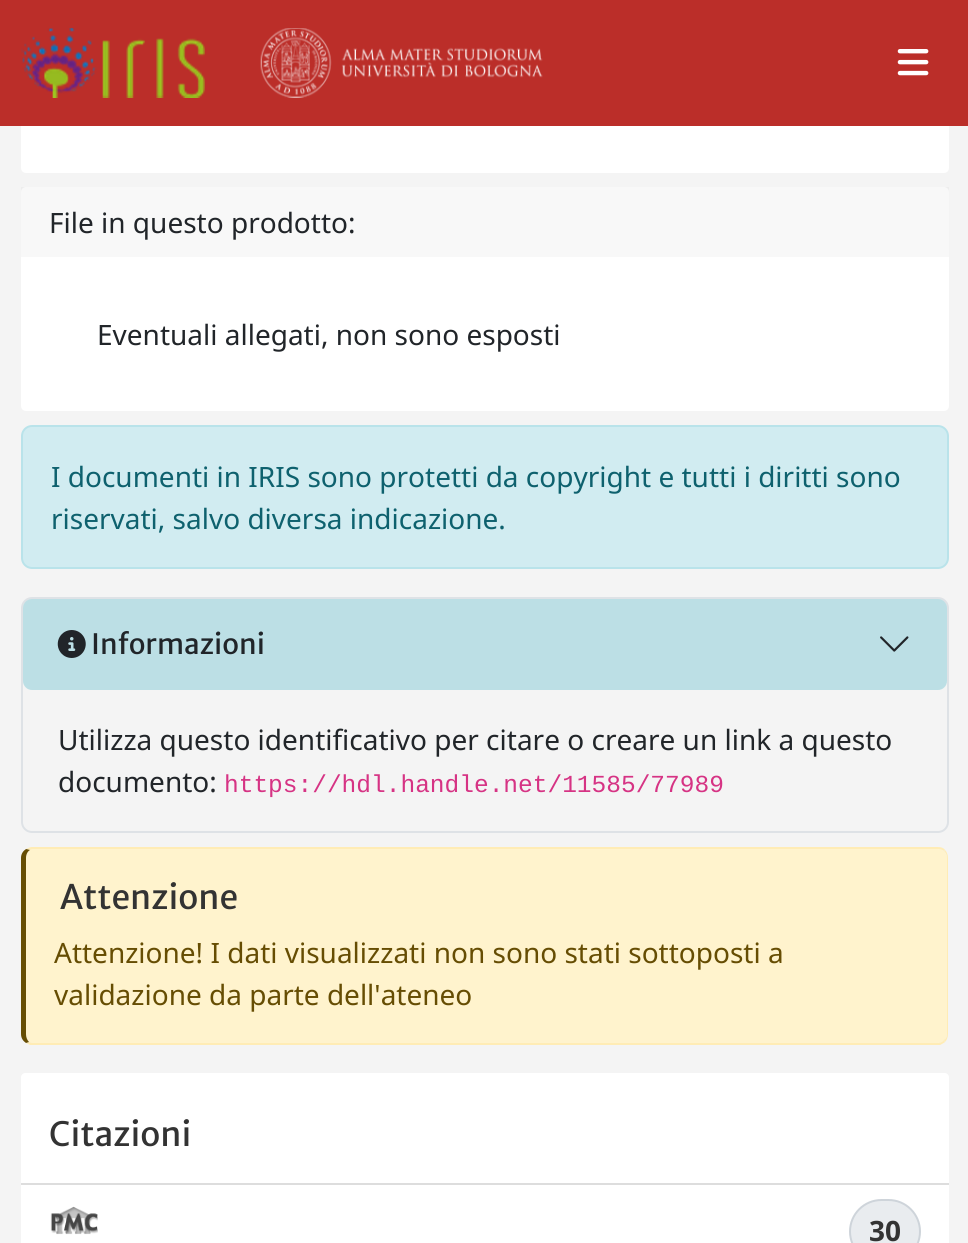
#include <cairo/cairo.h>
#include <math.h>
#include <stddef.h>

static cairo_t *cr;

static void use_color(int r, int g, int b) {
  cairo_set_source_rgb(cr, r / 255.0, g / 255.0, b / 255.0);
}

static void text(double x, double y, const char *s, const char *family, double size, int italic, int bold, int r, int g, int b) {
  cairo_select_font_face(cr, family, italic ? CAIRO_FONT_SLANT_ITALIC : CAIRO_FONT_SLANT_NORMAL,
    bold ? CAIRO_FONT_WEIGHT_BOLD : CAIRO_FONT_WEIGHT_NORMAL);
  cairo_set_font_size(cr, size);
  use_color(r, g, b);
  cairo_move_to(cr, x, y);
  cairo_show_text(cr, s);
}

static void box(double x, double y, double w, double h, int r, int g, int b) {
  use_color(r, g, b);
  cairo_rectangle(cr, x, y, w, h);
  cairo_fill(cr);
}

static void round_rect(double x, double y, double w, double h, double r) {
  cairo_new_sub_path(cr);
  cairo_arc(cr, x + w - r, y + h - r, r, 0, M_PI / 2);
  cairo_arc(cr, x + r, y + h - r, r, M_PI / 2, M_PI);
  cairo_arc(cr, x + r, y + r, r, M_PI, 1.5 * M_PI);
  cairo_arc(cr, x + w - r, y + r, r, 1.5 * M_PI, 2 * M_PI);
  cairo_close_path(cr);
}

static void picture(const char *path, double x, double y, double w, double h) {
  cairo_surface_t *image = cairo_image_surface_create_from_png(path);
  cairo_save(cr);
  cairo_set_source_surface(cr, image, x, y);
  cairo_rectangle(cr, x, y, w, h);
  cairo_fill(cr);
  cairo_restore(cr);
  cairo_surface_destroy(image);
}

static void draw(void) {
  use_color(244, 244, 244);
  cairo_paint(cr);
  use_color(255, 255, 255);
  round_rect(21, -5, 928, 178, 5);
  cairo_fill(cr);
  box(0, 0, 968, 126, 187, 46, 41);
  picture("img_01.png", 21, 28, 184, 70);
  picture("img_02.png", 260, 28, 283, 70);
  picture("img_03.png", 897, 49, 32, 27);
  use_color(255, 255, 255);
  round_rect(21, 187, 928, 224, 5);
  cairo_fill(cr);
  cairo_set_source_rgba(cr, 0, 0, 0, 0.03);
  cairo_rectangle(cr, 21, 187, 928, 70);
  cairo_fill(cr);
  use_color(209, 236, 241);
  round_rect(22, 426, 926, 142, 10);
  cairo_fill_preserve(cr);
  use_color(185, 227, 234);
  cairo_stroke(cr);
  round_rect(22, 598, 926, 234, 10);
  use_color(222, 226, 230);
  cairo_stroke(cr);
  cairo_set_source_rgba(cr, 0.09, 0.635, 0.722, 0.25);
  round_rect(23, 599, 924, 91, 9);
  cairo_fill(cr);
  picture("img_04.png", 57, 630, 29, 28);
  picture("img_05.png", 880, 636, 29, 16);
  use_color(255, 243, 205);
  cairo_new_path(cr);
  cairo_move_to(cr, 32, 849);
  cairo_line_to(cr, 938, 849);
  cairo_curve_to(cr, 943, 849, 947, 853, 947, 858);
  cairo_line_to(cr, 947, 1034);
  cairo_curve_to(cr, 947, 1039, 943, 1043, 938, 1043);
  cairo_line_to(cr, 32, 1043);
  cairo_curve_to(cr, 29, 1043, 26, 1039, 26, 1034);
  cairo_line_to(cr, 26, 858);
  cairo_curve_to(cr, 26, 853, 29, 849, 32, 849);
  cairo_close_path(cr);
  cairo_fill(cr);
  use_color(255, 236, 181);
  cairo_new_path(cr);
  cairo_move_to(cr, 32, 847);
  cairo_curve_to(cr, 30, 847, 28, 848, 26, 849);
  cairo_line_to(cr, 30, 850);
  cairo_line_to(cr, 32, 849);
  cairo_line_to(cr, 938, 849);
  cairo_curve_to(cr, 940, 849, 943, 850, 944, 851);
  cairo_line_to(cr, 945, 850);
  cairo_curve_to(cr, 944, 848, 941, 847, 938, 847);
  cairo_close_path(cr);
  cairo_fill(cr);
  cairo_new_path(cr);
  cairo_move_to(cr, 945, 850);
  cairo_curve_to(cr, 947, 852, 948, 855, 948, 858);
  cairo_line_to(cr, 948, 1034);
  cairo_curve_to(cr, 948, 1037, 947, 1040, 945, 1042);
  cairo_line_to(cr, 944, 1040);
  cairo_curve_to(cr, 946, 1039, 947, 1037, 947, 1034);
  cairo_line_to(cr, 947, 858);
  cairo_curve_to(cr, 947, 855, 946, 853, 944, 851);
  cairo_close_path(cr);
  cairo_fill(cr);
  cairo_new_path(cr);
  cairo_move_to(cr, 30, 1045);
  cairo_line_to(cr, 26, 1043);
  cairo_line_to(cr, 29, 1042);
  cairo_line_to(cr, 32, 1043);
  cairo_line_to(cr, 938, 1043);
  cairo_curve_to(cr, 940, 1043, 943, 1042, 944, 1040);
  cairo_line_to(cr, 945, 1042);
  cairo_curve_to(cr, 944, 1043, 942, 1044, 940, 1045);
  cairo_close_path(cr);
  cairo_fill(cr);
  use_color(102, 77, 3);
  cairo_new_path(cr);
  cairo_move_to(cr, 21, 858);
  cairo_line_to(cr, 21, 1034);
  cairo_curve_to(cr, 21, 1038, 23, 1041, 26, 1043);
  cairo_line_to(cr, 29, 1042);
  cairo_curve_to(cr, 27, 1040, 26, 1037, 26, 1034);
  cairo_line_to(cr, 26, 858);
  cairo_curve_to(cr, 26, 854, 28, 851, 30, 850);
  cairo_line_to(cr, 26, 849);
  cairo_curve_to(cr, 23, 851, 21, 854, 21, 858);
  cairo_close_path(cr);
  cairo_fill(cr);
  use_color(255, 255, 255);
  round_rect(21, 1073, 928, 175, 5);
  cairo_fill(cr);
  cairo_new_path(cr);
  cairo_move_to(cr, 26, 1073);
  cairo_line_to(cr, 944, 1073);
  cairo_curve_to(cr, 947, 1073, 949, 1075, 949, 1078);
  cairo_line_to(cr, 949, 1183);
  cairo_line_to(cr, 21, 1183);
  cairo_line_to(cr, 21, 1078);
  cairo_curve_to(cr, 21, 1075, 23, 1073, 26, 1073);
  cairo_close_path(cr);
  cairo_fill(cr);
  box(21, 1183, 928, 2, 221, 221, 221);
  picture("img_06.png", 50, 1206, 48, 29);
  use_color(233, 236, 239);
  round_rect(850, 1200, 70, 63, 31.5);
  cairo_fill_preserve(cr);
  use_color(206, 212, 218);
  cairo_stroke(cr);
  text(49, 233, "File in questo prodotto:", "Noto Sans", 28, 0, 0, 33, 37, 41);
  text(97, 345, "Eventuali allegati, non sono esposti", "Noto Sans", 28, 0, 0, 33, 37, 41);
  text(51, 487, "I documenti in IRIS sono protetti da copyright e tutti i diritti sono", "Noto Sans", 28, 0, 0, 14, 97, 110);
  text(51, 529, "riservati, salvo diversa indicazione.", "Noto Sans", 28, 0, 0, 14, 97, 110);
  text(91, 654, "Informazioni", "Merriweather Sans", 28, 0, 0, 33, 37, 41);
  text(58, 750, "Utilizza questo identificativo per citare o creare un link a questo", "Noto Sans", 28, 0, 0, 33, 37, 41);
  text(58, 792, "documento:", "Noto Sans", 28, 0, 0, 33, 37, 41);
  text(224, 792, "https://hdl.handle.net/11585/77989", "Liberation Mono", 24.5, 0, 0, 214, 51, 132);
  text(60, 909, "Attenzione", "Merriweather Sans", 33.5, 0, 0, 51, 51, 51);
  text(54, 963, "Attenzione! I dati visualizzati non sono stati sottoposti a", "Noto Sans", 28, 0, 0, 102, 77, 3);
  text(54, 1005, "validazione da parte dell'ateneo", "Noto Sans", 28, 0, 0, 102, 77, 3);
  text(49, 1146, "Citazioni", "Merriweather Sans", 33.5, 0, 0, 51, 51, 51);
  text(869, 1241, "30", "Noto Sans", 28, 0, 1, 51, 51, 51);
}

int main(void) {
  cairo_surface_t *surface = cairo_image_surface_create(CAIRO_FORMAT_RGB24, 968, 1243);
  cr = cairo_create(surface);
  cairo_font_options_t *options = cairo_font_options_create();
  cairo_font_options_set_hint_metrics(options, CAIRO_HINT_METRICS_OFF);
  cairo_font_options_set_hint_style(options, CAIRO_HINT_STYLE_NONE);
  cairo_set_font_options(cr, options);
  cairo_set_miter_limit(cr, 4);
  draw();
  cairo_surface_write_to_png(surface, "out.png");
  cairo_font_options_destroy(options);
  cairo_destroy(cr);
  cairo_surface_destroy(surface);
  return 0;
}
